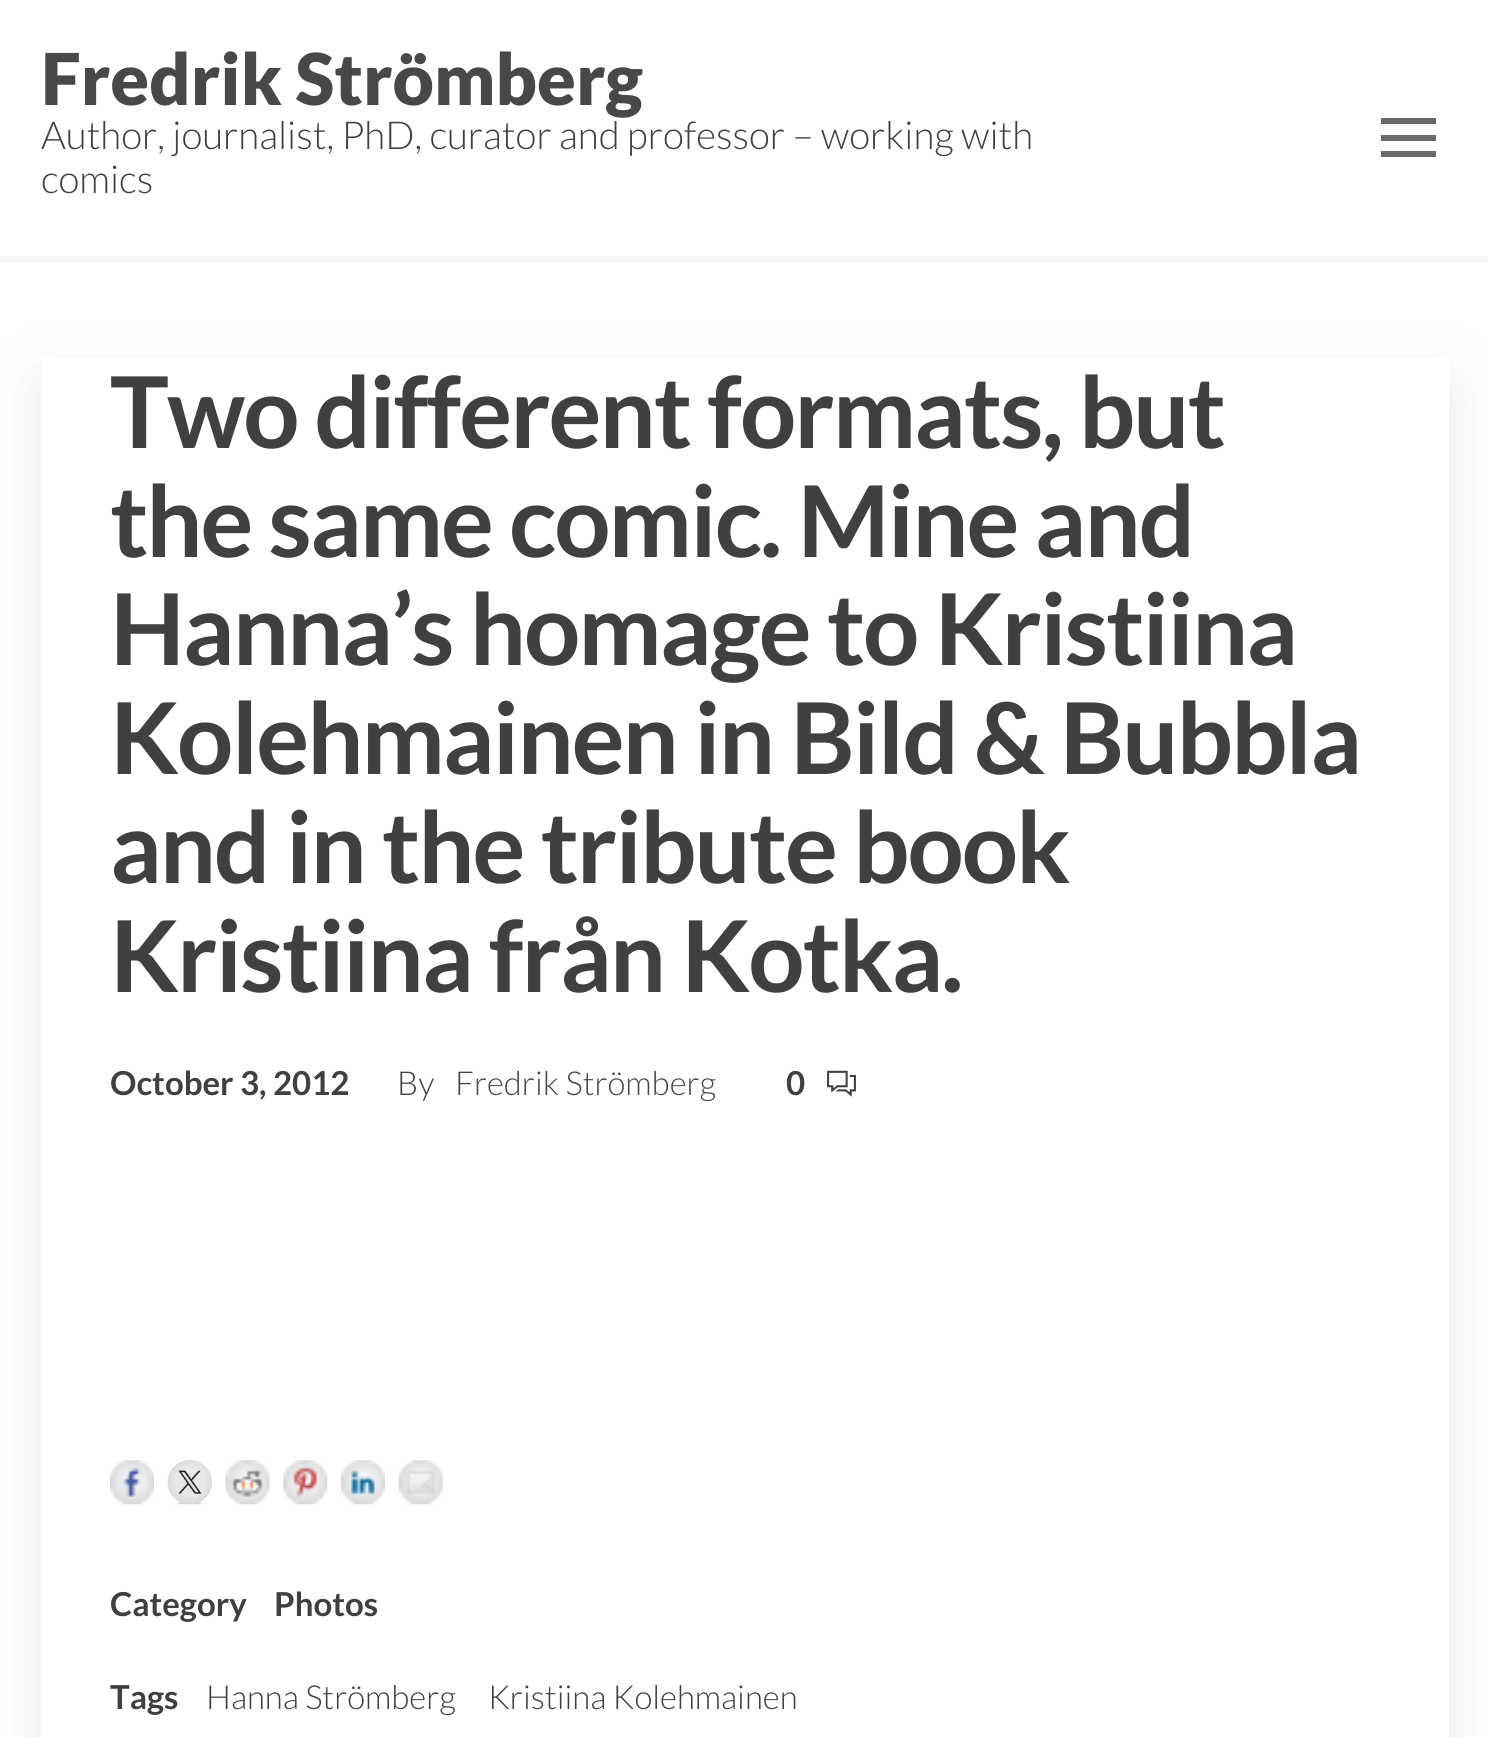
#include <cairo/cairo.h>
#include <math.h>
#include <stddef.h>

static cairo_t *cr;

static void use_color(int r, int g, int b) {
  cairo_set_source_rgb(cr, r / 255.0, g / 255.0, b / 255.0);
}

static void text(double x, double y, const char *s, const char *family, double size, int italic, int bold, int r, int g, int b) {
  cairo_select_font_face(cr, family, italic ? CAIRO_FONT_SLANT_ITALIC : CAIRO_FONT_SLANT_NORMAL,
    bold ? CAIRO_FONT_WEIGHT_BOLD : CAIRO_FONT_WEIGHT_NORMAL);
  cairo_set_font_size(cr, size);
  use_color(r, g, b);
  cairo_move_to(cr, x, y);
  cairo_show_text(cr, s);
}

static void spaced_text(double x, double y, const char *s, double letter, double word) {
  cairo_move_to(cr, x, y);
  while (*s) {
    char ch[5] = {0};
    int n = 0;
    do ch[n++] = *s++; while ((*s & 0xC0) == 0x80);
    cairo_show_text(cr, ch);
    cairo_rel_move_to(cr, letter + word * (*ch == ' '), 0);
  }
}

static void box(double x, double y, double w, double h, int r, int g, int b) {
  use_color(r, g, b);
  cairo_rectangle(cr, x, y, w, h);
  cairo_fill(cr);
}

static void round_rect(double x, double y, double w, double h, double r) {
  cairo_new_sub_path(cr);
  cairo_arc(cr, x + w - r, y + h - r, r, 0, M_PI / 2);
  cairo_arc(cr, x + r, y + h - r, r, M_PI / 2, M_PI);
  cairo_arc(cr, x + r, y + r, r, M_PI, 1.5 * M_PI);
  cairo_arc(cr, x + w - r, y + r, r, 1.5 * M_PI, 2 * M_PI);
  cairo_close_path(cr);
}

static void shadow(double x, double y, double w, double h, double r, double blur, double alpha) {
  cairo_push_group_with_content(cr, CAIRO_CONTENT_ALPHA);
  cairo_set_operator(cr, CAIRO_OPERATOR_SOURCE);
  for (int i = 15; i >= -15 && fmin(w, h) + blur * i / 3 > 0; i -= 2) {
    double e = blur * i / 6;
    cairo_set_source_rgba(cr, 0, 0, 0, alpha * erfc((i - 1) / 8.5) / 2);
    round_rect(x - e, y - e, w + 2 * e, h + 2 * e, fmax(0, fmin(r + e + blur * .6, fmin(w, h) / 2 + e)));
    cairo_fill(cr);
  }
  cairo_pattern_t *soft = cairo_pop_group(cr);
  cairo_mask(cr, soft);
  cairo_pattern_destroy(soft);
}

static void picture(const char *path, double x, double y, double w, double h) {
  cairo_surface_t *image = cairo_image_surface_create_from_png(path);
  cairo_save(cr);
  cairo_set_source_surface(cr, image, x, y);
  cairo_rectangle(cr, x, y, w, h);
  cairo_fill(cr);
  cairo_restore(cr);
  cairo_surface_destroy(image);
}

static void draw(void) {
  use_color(255, 255, 255);
  cairo_paint(cr);
  box(1381, 135, 55, 6, 105, 105, 105);
  box(1381, 118, 55, 6, 105, 105, 105);
  box(1381, 151, 55, 6, 105, 105, 105);
  box(0, 256, 1488, 6, 246, 246, 246);
  cairo_save(cr);
  cairo_set_fill_rule(cr, CAIRO_FILL_RULE_EVEN_ODD);
  cairo_new_path(cr);
  cairo_move_to(cr, 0, 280);
  cairo_line_to(cr, 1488, 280);
  cairo_line_to(cr, 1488, 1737);
  cairo_line_to(cr, 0, 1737);
  cairo_close_path(cr);
  cairo_move_to(cr, 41, 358);
  cairo_line_to(cr, 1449, 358);
  cairo_line_to(cr, 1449, 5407);
  cairo_line_to(cr, 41, 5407);
  cairo_close_path(cr);
  cairo_clip(cr);
  use_color(25, 45, 110);
  shadow(41, 385, 1408, 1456, 0, 34.5, 0.1);
  cairo_restore(cr);
  picture("img_01.png", 827, 1070, 29, 27);
  picture("img_02.png", 110, 1460, 44, 45);
  picture("img_03.png", 167, 1460, 45, 45);
  picture("img_04.png", 225, 1460, 45, 45);
  picture("img_05.png", 283, 1460, 45, 45);
  picture("img_06.png", 341, 1460, 44, 45);
  picture("img_07.png", 398, 1460, 45, 45);
  text(41, 105, "Fredrik Strömberg", "Lato Black", 71.5, 0, 0, 72, 72, 72);
  text(41, 149, "Author, journalist, PhD, curator and professor – working with", "Lato Light", 38.5, 0, 0, 64, 64, 64);
  text(41, 193, "comics", "Lato Light", 38.5, 0, 0, 64, 64, 64);
  cairo_select_font_face(cr, "Lato", CAIRO_FONT_SLANT_NORMAL, CAIRO_FONT_WEIGHT_BOLD);
  cairo_set_font_size(cr, 99);
  spaced_text(110, 448, "Two different formats, but", -2, 0);
  spaced_text(110, 557, "the same comic. Mine and", -2, 0);
  spaced_text(110, 665, "Hanna’s homage to Kristiina", -2, 0);
  spaced_text(110, 774, "Kolehmainen in Bild & Bubbla", -2, 0);
  spaced_text(110, 883, "and in the tribute book", -2, 0);
  spaced_text(110, 992, "Kristiina från Kotka.", -2, 0);
  text(110, 1095, "October 3, 2012", "Lato", 33, 0, 1, 64, 64, 64);
  text(397, 1095, "By", "Lato Light", 33, 0, 0, 64, 64, 64);
  text(455, 1095, "Fredrik Strömberg", "Lato Light", 33, 0, 0, 72, 72, 72);
  text(786, 1095, "0", "Lato", 33, 0, 1, 64, 64, 64);
  text(110, 1616, "Category", "Lato", 33, 0, 1, 64, 64, 64);
  text(274, 1616, "Photos", "Lato", 33, 0, 1, 64, 64, 64);
  text(110, 1709, "Tags", "Lato", 33, 0, 1, 64, 64, 64);
  text(206, 1709, "Hanna Strömberg", "Lato Light", 33, 0, 0, 64, 64, 64);
  text(488, 1709, "Kristiina Kolehmainen", "Lato Light", 33, 0, 0, 64, 64, 64);
}

int main(void) {
  cairo_surface_t *surface = cairo_image_surface_create(CAIRO_FORMAT_RGB24, 1488, 1737);
  cr = cairo_create(surface);
  cairo_font_options_t *options = cairo_font_options_create();
  cairo_font_options_set_hint_metrics(options, CAIRO_HINT_METRICS_OFF);
  cairo_font_options_set_hint_style(options, CAIRO_HINT_STYLE_NONE);
  cairo_set_font_options(cr, options);
  cairo_set_miter_limit(cr, 4);
  draw();
  cairo_surface_write_to_png(surface, "out.png");
  cairo_font_options_destroy(options);
  cairo_destroy(cr);
  cairo_surface_destroy(surface);
  return 0;
}
